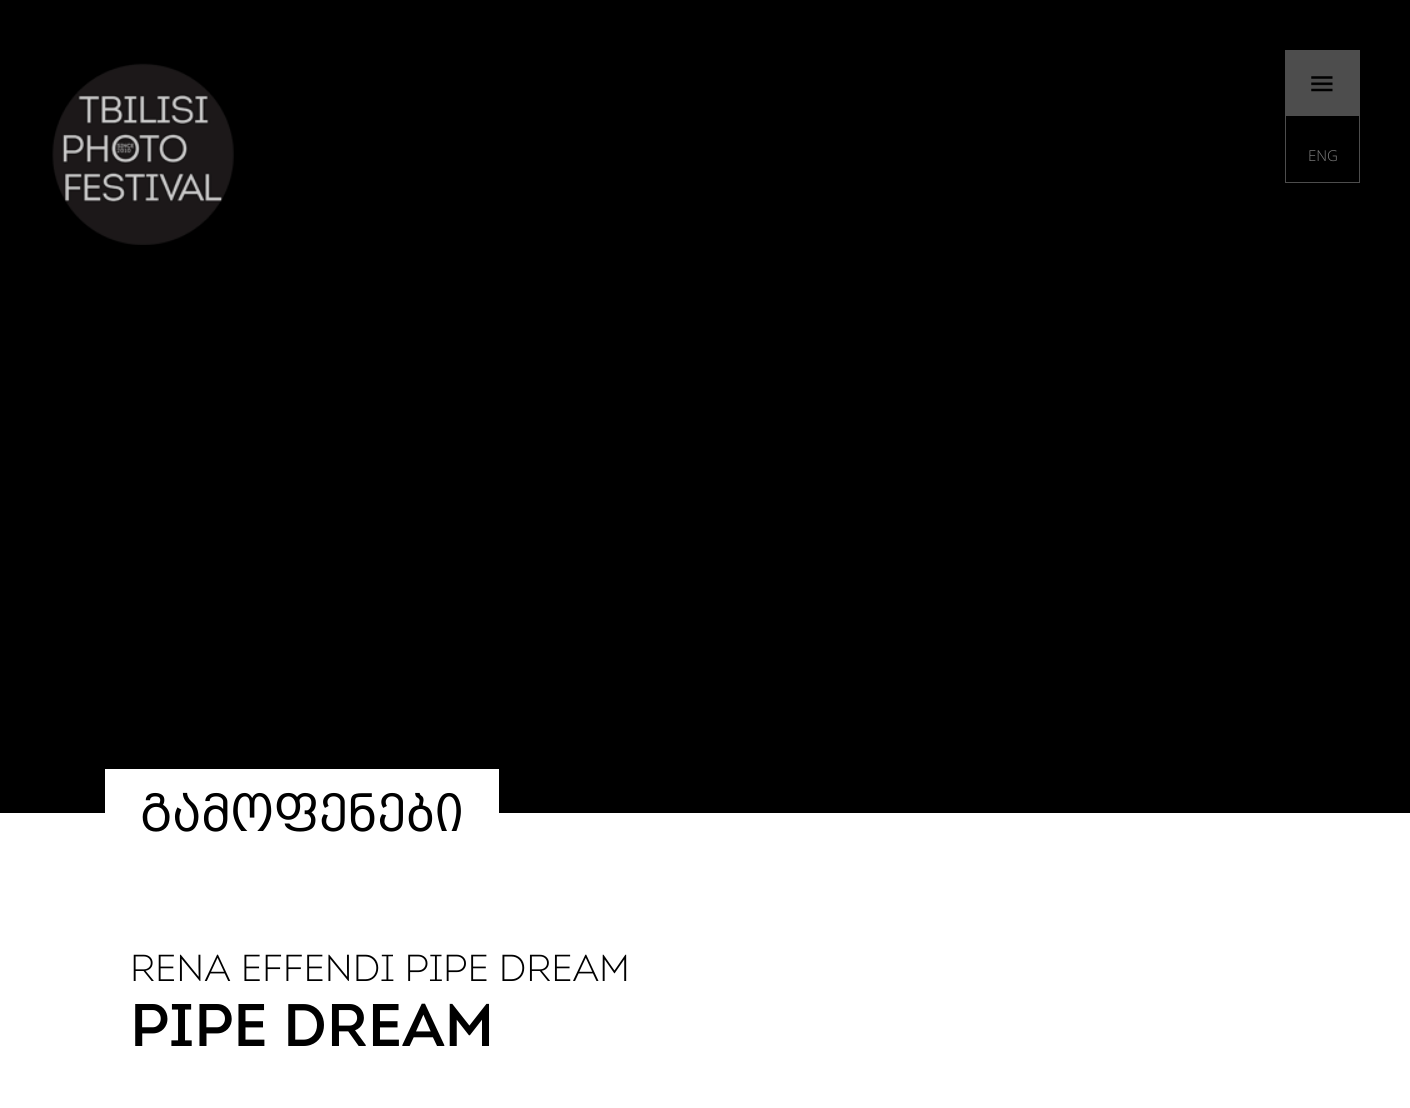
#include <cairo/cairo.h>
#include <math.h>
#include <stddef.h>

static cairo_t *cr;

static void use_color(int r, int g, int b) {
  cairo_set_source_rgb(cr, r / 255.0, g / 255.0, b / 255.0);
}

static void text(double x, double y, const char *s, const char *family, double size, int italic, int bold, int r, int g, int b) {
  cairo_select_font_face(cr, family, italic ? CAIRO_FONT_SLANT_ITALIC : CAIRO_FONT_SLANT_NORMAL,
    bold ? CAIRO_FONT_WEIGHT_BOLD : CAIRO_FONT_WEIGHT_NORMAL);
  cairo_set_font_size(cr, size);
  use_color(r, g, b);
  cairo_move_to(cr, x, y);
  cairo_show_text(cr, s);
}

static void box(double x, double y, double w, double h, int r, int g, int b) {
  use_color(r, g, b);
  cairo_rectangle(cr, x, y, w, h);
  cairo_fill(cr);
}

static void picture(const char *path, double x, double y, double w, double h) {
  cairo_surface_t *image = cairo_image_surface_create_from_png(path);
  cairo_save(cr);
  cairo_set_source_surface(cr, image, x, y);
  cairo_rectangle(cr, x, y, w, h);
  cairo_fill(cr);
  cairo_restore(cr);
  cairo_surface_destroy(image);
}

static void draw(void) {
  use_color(255, 255, 255);
  cairo_paint(cr);
  box(0, 0, 1410, 813, 0, 0, 0);
  picture("img_01.png", 52, 63, 182, 182);
  cairo_rectangle(cr, 1285.5, 50.5, 74, 132);
  use_color(77, 77, 77);
  cairo_set_line_width(cr, 1);
  cairo_stroke(cr);
  box(1286, 51, 73, 65, 77, 77, 77);
  picture("img_02.png", 1311, 76, 22, 16);
  box(105, 769, 394, 44, 255, 255, 255);
  text(1308, 161, "ENG", "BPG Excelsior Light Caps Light", 15, 0, 0, 128, 128, 128);
  text(140, 831, "გამოფენები", "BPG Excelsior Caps", 50, 0, 0, 0, 0, 0);
  text(130, 981, "Rena Effendi Pipe Dream", "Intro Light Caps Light", 37.5, 0, 0, 0, 0, 0);
  text(130, 1046, "Pipe Dream", "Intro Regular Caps", 60, 0, 0, 0, 0, 0);
}

int main(void) {
  cairo_surface_t *surface = cairo_image_surface_create(CAIRO_FORMAT_RGB24, 1410, 1108);
  cr = cairo_create(surface);
  cairo_font_options_t *options = cairo_font_options_create();
  cairo_font_options_set_hint_metrics(options, CAIRO_HINT_METRICS_OFF);
  cairo_font_options_set_hint_style(options, CAIRO_HINT_STYLE_NONE);
  cairo_set_font_options(cr, options);
  cairo_set_miter_limit(cr, 4);
  draw();
  cairo_surface_write_to_png(surface, "out.png");
  cairo_font_options_destroy(options);
  cairo_destroy(cr);
  cairo_surface_destroy(surface);
  return 0;
}
